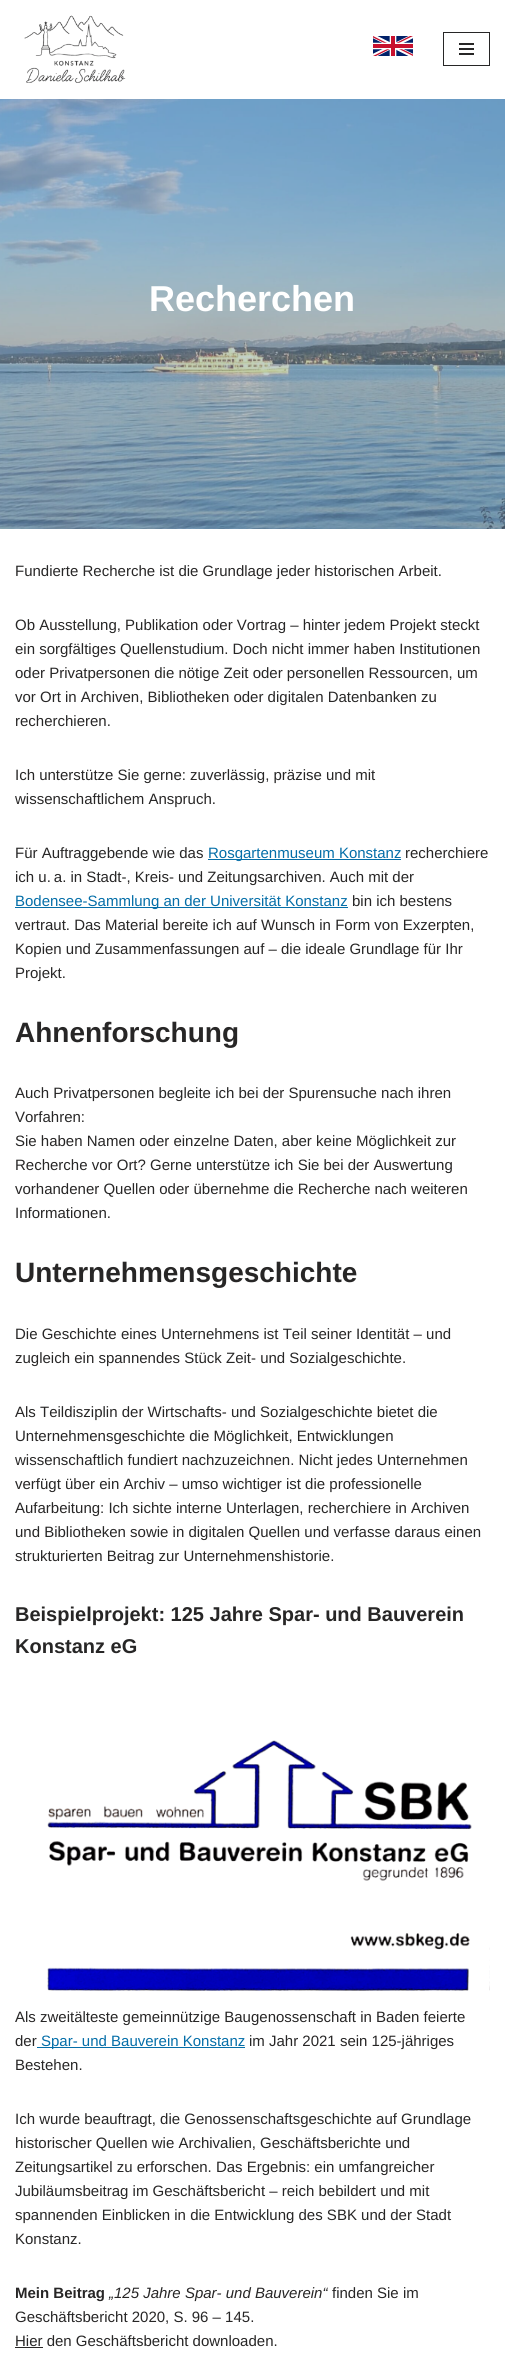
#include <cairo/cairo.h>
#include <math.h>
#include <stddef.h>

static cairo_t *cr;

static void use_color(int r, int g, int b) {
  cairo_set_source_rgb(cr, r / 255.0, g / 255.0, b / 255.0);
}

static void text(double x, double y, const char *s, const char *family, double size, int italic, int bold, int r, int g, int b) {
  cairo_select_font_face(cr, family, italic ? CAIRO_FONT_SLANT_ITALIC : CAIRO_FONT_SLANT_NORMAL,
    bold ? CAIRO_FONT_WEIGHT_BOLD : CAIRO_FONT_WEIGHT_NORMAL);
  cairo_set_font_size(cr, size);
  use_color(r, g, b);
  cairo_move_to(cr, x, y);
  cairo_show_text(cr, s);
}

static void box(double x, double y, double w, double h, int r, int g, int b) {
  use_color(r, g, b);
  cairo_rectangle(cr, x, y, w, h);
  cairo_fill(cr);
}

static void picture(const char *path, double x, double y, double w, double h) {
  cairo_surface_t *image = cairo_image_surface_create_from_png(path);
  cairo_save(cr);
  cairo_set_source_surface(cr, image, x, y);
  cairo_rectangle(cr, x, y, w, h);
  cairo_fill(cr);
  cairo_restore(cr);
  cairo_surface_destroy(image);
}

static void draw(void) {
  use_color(255, 255, 255);
  cairo_paint(cr);
  picture("img_01.png", 24, 15, 102, 68);
  picture("img_02.png", 373, 36, 40, 20);
  cairo_rectangle(cr, 443.5, 32.5, 46, 33);
  use_color(39, 38, 38);
  cairo_set_line_width(cr, 1);
  cairo_stroke(cr);
  box(459, 43, 15, 2, 39, 38, 38);
  box(459, 48, 15, 2, 39, 38, 38);
  box(459, 53, 15, 2, 39, 38, 38);
  picture("img_03.png", 0, 99, 505, 430);
  box(208, 859, 193, 1, 4, 110, 168);
  box(15, 907, 333, 1, 4, 110, 168);
  picture("img_04.png", 47, 1740, 443, 251);
  box(37, 2047, 208, 1, 4, 110, 168);
  box(15, 2347, 28, 1, 39, 38, 38);
  text(149, 311, "Recherchen", "Liberation Sans", 36, 0, 1, 255, 255, 255);
  text(15, 576, "Fundierte Recherche ist die Grundlage jeder historischen Arbeit.", "Liberation Sans", 15, 0, 0, 39, 38, 38);
  text(15, 630, "Ob Ausstellung, Publikation oder Vortrag – hinter jedem Projekt steckt", "Liberation Sans", 15, 0, 0, 39, 38, 38);
  text(15, 654, "ein sorgfältiges Quellenstudium. Doch nicht immer haben Institutionen", "Liberation Sans", 15, 0, 0, 39, 38, 38);
  text(15, 678, "oder Privatpersonen die nötige Zeit oder personellen Ressourcen, um", "Liberation Sans", 15, 0, 0, 39, 38, 38);
  text(15, 702, "vor Ort in Archiven, Bibliotheken oder digitalen Datenbanken zu", "Liberation Sans", 15, 0, 0, 39, 38, 38);
  text(15, 726, "recherchieren.", "Liberation Sans", 15, 0, 0, 39, 38, 38);
  text(15, 780, "Ich unterstütze Sie gerne: zuverlässig, präzise und mit", "Liberation Sans", 15, 0, 0, 39, 38, 38);
  text(15, 804, "wissenschaftlichem Anspruch.", "Liberation Sans", 15, 0, 0, 39, 38, 38);
  text(15, 858, "Für Auftraggebende wie das", "Liberation Sans", 15, 0, 0, 39, 38, 38);
  text(208, 858, "Rosgartenmuseum Konstanz", "Liberation Sans", 15, 0, 0, 4, 110, 168);
  text(405, 858, "recherchiere", "Liberation Sans", 15, 0, 0, 39, 38, 38);
  text(15, 882, "ich u. a. in Stadt-, Kreis- und Zeitungsarchiven. Auch mit der", "Liberation Sans", 15, 0, 0, 39, 38, 38);
  text(15, 906, "Bodensee-Sammlung an der Universität Konstanz", "Liberation Sans", 15, 0, 0, 4, 110, 168);
  text(352, 906, "bin ich bestens", "Liberation Sans", 15, 0, 0, 39, 38, 38);
  text(15, 930, "vertraut. Das Material bereite ich auf Wunsch in Form von Exzerpten,", "Liberation Sans", 15, 0, 0, 39, 38, 38);
  text(15, 954, "Kopien und Zusammenfassungen auf – die ideale Grundlage für Ihr", "Liberation Sans", 15, 0, 0, 39, 38, 38);
  text(15, 978, "Projekt.", "Liberation Sans", 15, 0, 0, 39, 38, 38);
  text(15, 1042, "Ahnenforschung", "Liberation Sans", 28, 0, 1, 39, 38, 38);
  text(15, 1098, "Auch Privatpersonen begleite ich bei der Spurensuche nach ihren", "Liberation Sans", 15, 0, 0, 39, 38, 38);
  text(15, 1122, "Vorfahren:", "Liberation Sans", 15, 0, 0, 39, 38, 38);
  text(15, 1146, "Sie haben Namen oder einzelne Daten, aber keine Möglichkeit zur", "Liberation Sans", 15, 0, 0, 39, 38, 38);
  text(15, 1170, "Recherche vor Ort? Gerne unterstütze ich Sie bei der Auswertung", "Liberation Sans", 15, 0, 0, 39, 38, 38);
  text(15, 1194, "vorhandener Quellen oder übernehme die Recherche nach weiteren", "Liberation Sans", 15, 0, 0, 39, 38, 38);
  text(15, 1218, "Informationen.", "Liberation Sans", 15, 0, 0, 39, 38, 38);
  text(15, 1282, "Unternehmensgeschichte", "Liberation Sans", 28, 0, 1, 39, 38, 38);
  text(15, 1339, "Die Geschichte eines Unternehmens ist Teil seiner Identität – und", "Liberation Sans", 15, 0, 0, 39, 38, 38);
  text(15, 1363, "zugleich ein spannendes Stück Zeit- und Sozialgeschichte.", "Liberation Sans", 15, 0, 0, 39, 38, 38);
  text(15, 1417, "Als Teildisziplin der Wirtschafts- und Sozialgeschichte bietet die", "Liberation Sans", 15, 0, 0, 39, 38, 38);
  text(15, 1441, "Unternehmensgeschichte die Möglichkeit, Entwicklungen", "Liberation Sans", 15, 0, 0, 39, 38, 38);
  text(15, 1465, "wissenschaftlich fundiert nachzuzeichnen. Nicht jedes Unternehmen", "Liberation Sans", 15, 0, 0, 39, 38, 38);
  text(15, 1489, "verfügt über ein Archiv – umso wichtiger ist die professionelle", "Liberation Sans", 15, 0, 0, 39, 38, 38);
  text(15, 1513, "Aufarbeitung: Ich sichte interne Unterlagen, recherchiere in Archiven", "Liberation Sans", 15, 0, 0, 39, 38, 38);
  text(15, 1537, "und Bibliotheken sowie in digitalen Quellen und verfasse daraus einen", "Liberation Sans", 15, 0, 0, 39, 38, 38);
  text(15, 1561, "strukturierten Beitrag zur Unternehmenshistorie.", "Liberation Sans", 15, 0, 0, 39, 38, 38);
  text(15, 1621, "Beispielprojekt: 125 Jahre Spar- und Bauverein", "Liberation Sans", 20, 0, 1, 39, 38, 38);
  text(15, 1653, "Konstanz eG", "Liberation Sans", 20, 0, 1, 39, 38, 38);
  text(15, 2022, "Als zweitälteste gemeinnützige Baugenossenschaft in Baden feierte", "Liberation Sans", 15, 0, 0, 39, 38, 38);
  text(15, 2046, "der", "Liberation Sans", 15, 0, 0, 39, 38, 38);
  text(41, 2046, "Spar- und Bauverein Konstanz", "Liberation Sans", 15, 0, 0, 4, 110, 168);
  text(249, 2046, "im Jahr 2021 sein 125-jähriges", "Liberation Sans", 15, 0, 0, 39, 38, 38);
  text(15, 2070, "Bestehen.", "Liberation Sans", 15, 0, 0, 39, 38, 38);
  text(15, 2124, "Ich wurde beauftragt, die Genossenschaftsgeschichte auf Grundlage", "Liberation Sans", 15, 0, 0, 39, 38, 38);
  text(15, 2148, "historischer Quellen wie Archivalien, Geschäftsberichte und", "Liberation Sans", 15, 0, 0, 39, 38, 38);
  text(15, 2172, "Zeitungsartikel zu erforschen. Das Ergebnis: ein umfangreicher", "Liberation Sans", 15, 0, 0, 39, 38, 38);
  text(15, 2196, "Jubiläumsbeitrag im Geschäftsbericht – reich bebildert und mit", "Liberation Sans", 15, 0, 0, 39, 38, 38);
  text(15, 2220, "spannenden Einblicken in die Entwicklung des SBK und der Stadt", "Liberation Sans", 15, 0, 0, 39, 38, 38);
  text(15, 2244, "Konstanz.", "Liberation Sans", 15, 0, 0, 39, 38, 38);
  text(15, 2298, "Mein Beitrag", "Liberation Sans", 15, 0, 1, 39, 38, 38);
  text(109, 2298, "„125 Jahre Spar- und Bauverein“", "Liberation Sans", 15, 1, 0, 39, 38, 38);
  text(332, 2298, "finden Sie im", "Liberation Sans", 15, 0, 0, 39, 38, 38);
  text(15, 2322, "Geschäftsbericht 2020, S. 96 – 145.", "Liberation Sans", 15, 0, 0, 39, 38, 38);
  text(15, 2346, "Hier den Geschäftsbericht downloaden.", "Liberation Sans", 15, 0, 0, 39, 38, 38);
}

int main(void) {
  cairo_surface_t *surface = cairo_image_surface_create(CAIRO_FORMAT_RGB24, 505, 2372);
  cr = cairo_create(surface);
  cairo_font_options_t *options = cairo_font_options_create();
  cairo_font_options_set_hint_metrics(options, CAIRO_HINT_METRICS_OFF);
  cairo_font_options_set_hint_style(options, CAIRO_HINT_STYLE_NONE);
  cairo_set_font_options(cr, options);
  cairo_set_miter_limit(cr, 4);
  draw();
  cairo_surface_write_to_png(surface, "out.png");
  cairo_font_options_destroy(options);
  cairo_destroy(cr);
  cairo_surface_destroy(surface);
  return 0;
}
